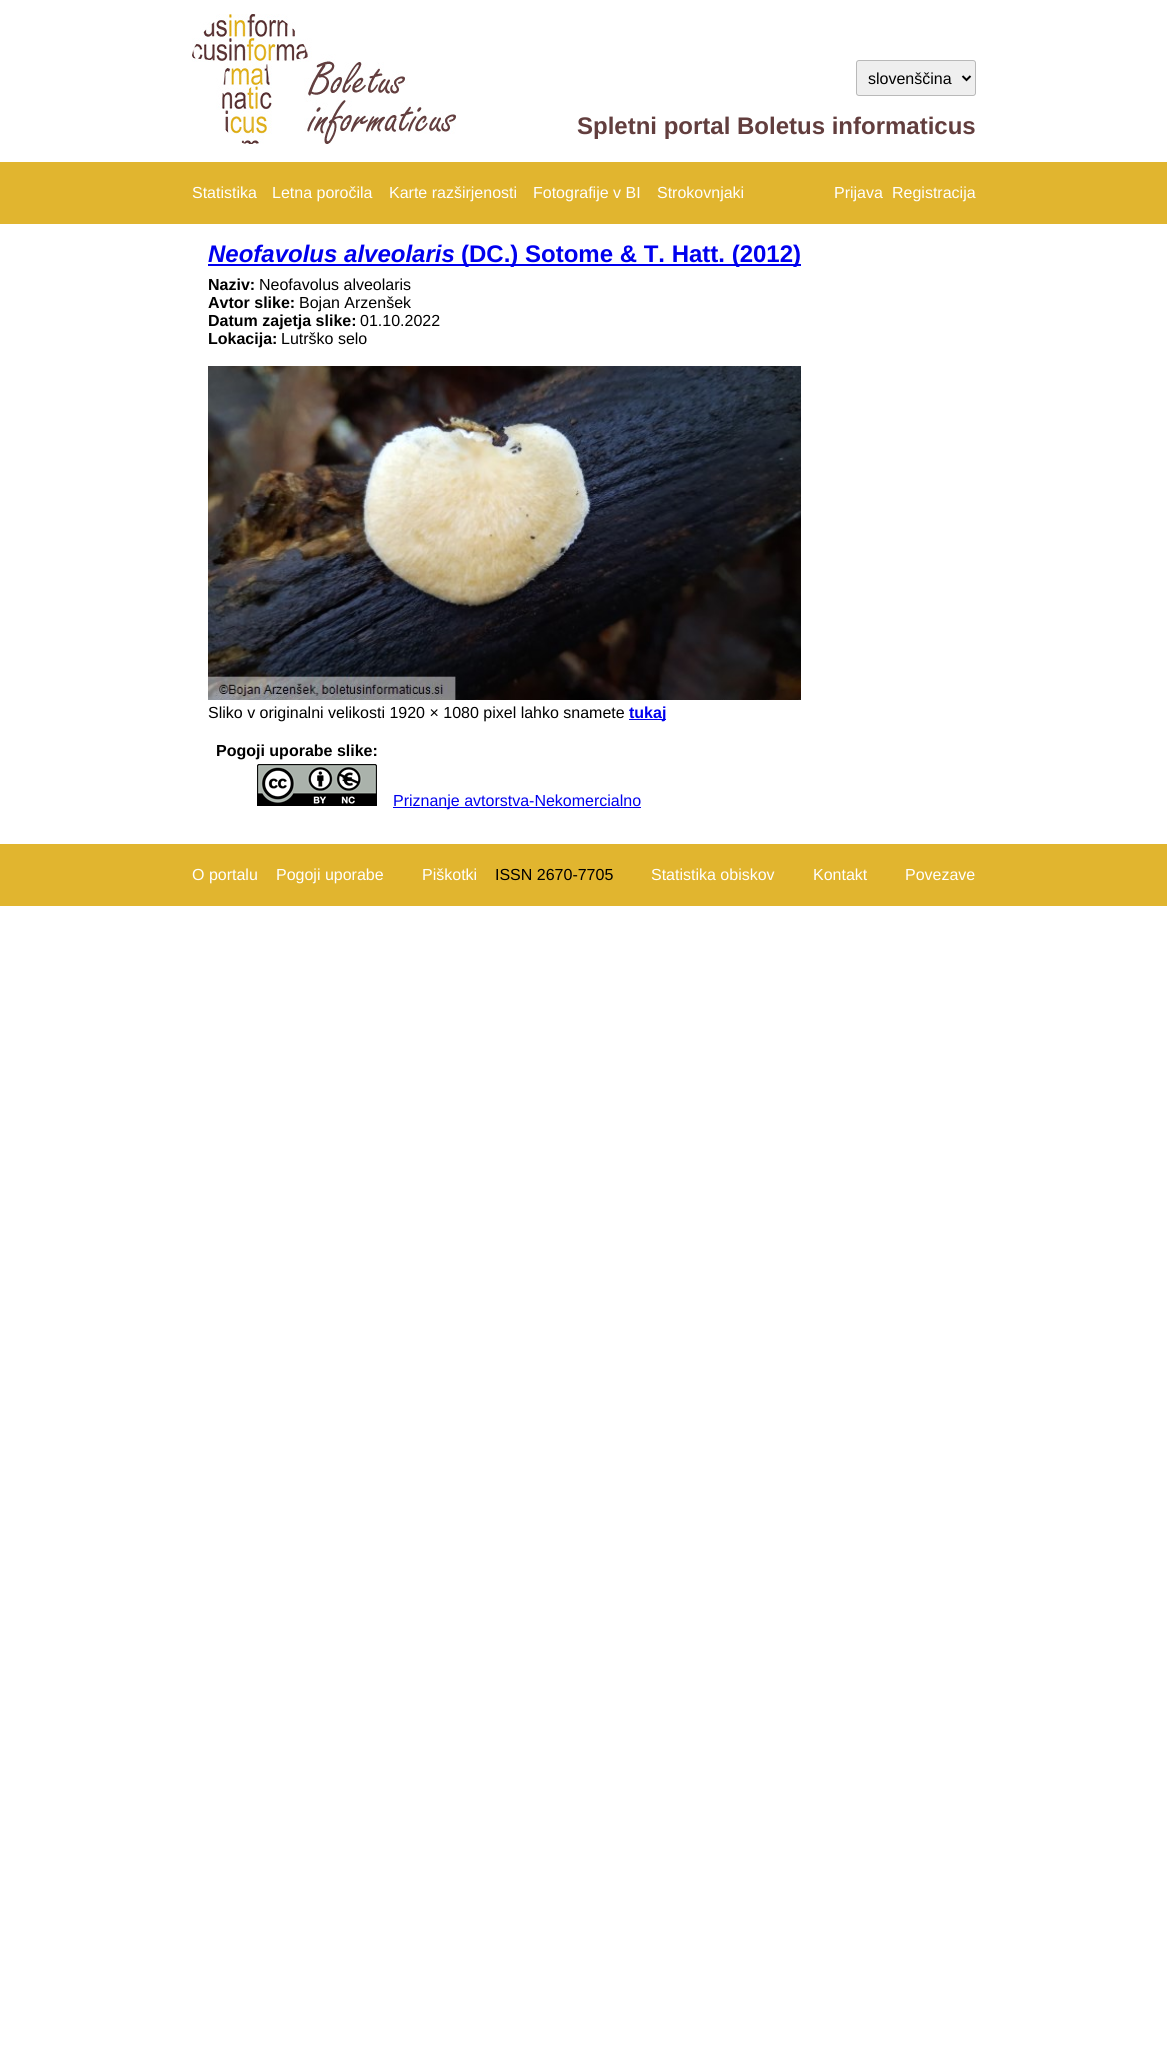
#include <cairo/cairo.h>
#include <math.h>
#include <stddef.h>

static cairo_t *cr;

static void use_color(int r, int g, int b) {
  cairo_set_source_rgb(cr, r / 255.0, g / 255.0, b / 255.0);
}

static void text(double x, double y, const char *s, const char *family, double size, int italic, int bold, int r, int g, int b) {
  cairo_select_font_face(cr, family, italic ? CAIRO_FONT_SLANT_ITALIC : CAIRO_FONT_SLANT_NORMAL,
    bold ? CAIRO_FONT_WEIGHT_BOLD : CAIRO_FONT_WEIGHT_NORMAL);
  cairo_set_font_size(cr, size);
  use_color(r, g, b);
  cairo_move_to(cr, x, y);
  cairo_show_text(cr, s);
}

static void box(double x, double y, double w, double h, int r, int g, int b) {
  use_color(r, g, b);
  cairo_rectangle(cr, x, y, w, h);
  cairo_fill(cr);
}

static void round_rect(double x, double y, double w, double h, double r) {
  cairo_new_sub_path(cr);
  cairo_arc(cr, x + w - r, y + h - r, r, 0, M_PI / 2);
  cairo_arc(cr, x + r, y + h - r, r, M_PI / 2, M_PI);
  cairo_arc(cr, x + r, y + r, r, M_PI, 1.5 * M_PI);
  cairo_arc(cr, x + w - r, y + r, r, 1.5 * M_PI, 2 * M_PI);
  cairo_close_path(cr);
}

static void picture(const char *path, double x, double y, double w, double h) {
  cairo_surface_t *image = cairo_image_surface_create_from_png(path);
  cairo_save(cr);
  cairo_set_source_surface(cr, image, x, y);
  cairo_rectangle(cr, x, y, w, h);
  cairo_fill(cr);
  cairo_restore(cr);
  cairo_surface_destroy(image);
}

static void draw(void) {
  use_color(255, 255, 255);
  cairo_paint(cr);
  picture("img_01.png", 192, 14, 264, 130);
  use_color(239, 239, 239);
  round_rect(856.5, 60.5, 119, 35, 2.5);
  cairo_fill_preserve(cr);
  use_color(185, 185, 185);
  cairo_set_line_width(cr, 1);
  cairo_stroke(cr);
  cairo_new_path(cr);
  cairo_move_to(cr, 962.5, 76);
  cairo_line_to(cr, 966.5, 80);
  cairo_line_to(cr, 970.5, 76);
  use_color(0, 0, 0);
  cairo_set_line_width(cr, 2);
  cairo_stroke(cr);
  box(0, 162, 1167, 62, 225, 181, 47);
  box(208, 264, 593, 2, 0, 0, 238);
  picture("img_02.png", 208, 366, 593, 334);
  box(629, 719, 37, 1, 0, 0, 238);
  picture("img_03.png", 257, 764, 120, 42);
  box(393, 807, 248, 1, 0, 0, 238);
  box(0, 844, 1167, 62, 225, 181, 47);
  text(868, 84, "slovenščina", "Liberation Sans", 16, 0, 0, 0, 0, 0);
  text(577, 134, "Spletni portal Boletus informaticus", "Liberation Sans", 24, 0, 1, 98, 62, 62);
  text(192, 198, "Statistika", "Liberation Sans", 16, 0, 0, 255, 255, 255);
  text(272, 198, "Letna poročila", "Liberation Sans", 16, 0, 0, 255, 255, 255);
  text(389, 198, "Karte razširjenosti", "Liberation Sans", 16, 0, 0, 255, 255, 255);
  text(533, 198, "Fotografije v BI", "Liberation Sans", 16, 0, 0, 255, 255, 255);
  text(657, 198, "Strokovnjaki", "Liberation Sans", 16, 0, 0, 255, 255, 255);
  text(834, 198, "Prijava", "Liberation Sans", 16, 0, 0, 255, 255, 255);
  text(892, 198, "Registracija", "Liberation Sans", 16, 0, 0, 255, 255, 255);
  text(208, 262, "Neofavolus alveolaris", "Liberation Sans", 24, 1, 1, 0, 0, 238);
  text(461, 262, "(DC.) Sotome & T. Hatt. (2012)", "Liberation Sans", 24, 0, 1, 0, 0, 238);
  text(208, 290, "Naziv:", "Liberation Sans", 16, 0, 1, 0, 0, 0);
  text(259, 290, "Neofavolus alveolaris", "Liberation Sans", 16, 0, 0, 0, 0, 0);
  text(208, 308, "Avtor slike:", "Liberation Sans", 16, 0, 1, 0, 0, 0);
  text(299, 308, "Bojan Arzenšek", "Liberation Sans", 16, 0, 0, 0, 0, 0);
  text(208, 326, "Datum zajetja slike:", "Liberation Sans", 16, 0, 1, 0, 0, 0);
  text(360, 326, "01.10.2022", "Liberation Sans", 16, 0, 0, 0, 0, 0);
  text(208, 344, "Lokacija:", "Liberation Sans", 16, 0, 1, 0, 0, 0);
  text(281, 344, "Lutrško selo", "Liberation Sans", 16, 0, 0, 0, 0, 0);
  text(208, 718, "Sliko v originalni velikosti 1920 × 1080 pixel lahko snamete", "Liberation Sans", 16, 0, 0, 0, 0, 0);
  text(629, 718, "tukaj", "Liberation Sans", 16, 0, 1, 0, 0, 238);
  text(216, 756, "Pogoji uporabe slike:", "Liberation Sans", 16, 0, 1, 0, 0, 0);
  text(393, 806, "Priznanje avtorstva-Nekomercialno", "Liberation Sans", 16, 0, 0, 0, 0, 238);
  text(192, 880, "O portalu", "Liberation Sans", 16, 0, 0, 255, 255, 255);
  text(276, 880, "Pogoji uporabe", "Liberation Sans", 16, 0, 0, 255, 255, 255);
  text(422, 880, "Piškotki", "Liberation Sans", 16, 0, 0, 255, 255, 255);
  text(495, 880, "ISSN 2670-7705", "Liberation Sans", 16, 0, 0, 0, 0, 0);
  text(651, 880, "Statistika obiskov", "Liberation Sans", 16, 0, 0, 255, 255, 255);
  text(813, 880, "Kontakt", "Liberation Sans", 16, 0, 0, 255, 255, 255);
  text(905, 880, "Povezave", "Liberation Sans", 16, 0, 0, 255, 255, 255);
}

int main(void) {
  cairo_surface_t *surface = cairo_image_surface_create(CAIRO_FORMAT_RGB24, 1167, 2070);
  cr = cairo_create(surface);
  cairo_font_options_t *options = cairo_font_options_create();
  cairo_font_options_set_hint_metrics(options, CAIRO_HINT_METRICS_OFF);
  cairo_font_options_set_hint_style(options, CAIRO_HINT_STYLE_NONE);
  cairo_set_font_options(cr, options);
  cairo_set_miter_limit(cr, 4);
  draw();
  cairo_surface_write_to_png(surface, "out.png");
  cairo_font_options_destroy(options);
  cairo_destroy(cr);
  cairo_surface_destroy(surface);
  return 0;
}
